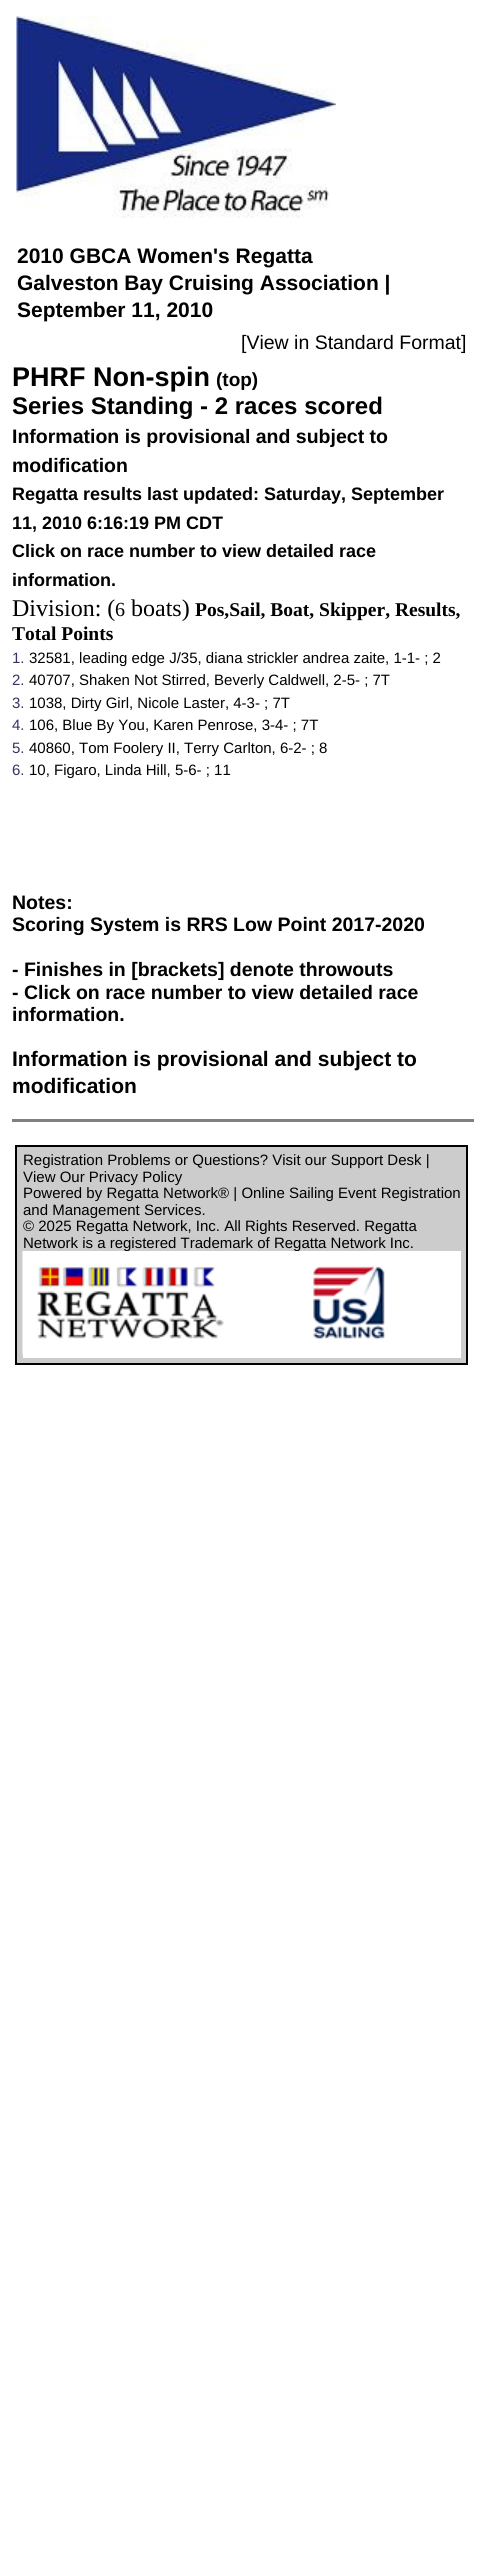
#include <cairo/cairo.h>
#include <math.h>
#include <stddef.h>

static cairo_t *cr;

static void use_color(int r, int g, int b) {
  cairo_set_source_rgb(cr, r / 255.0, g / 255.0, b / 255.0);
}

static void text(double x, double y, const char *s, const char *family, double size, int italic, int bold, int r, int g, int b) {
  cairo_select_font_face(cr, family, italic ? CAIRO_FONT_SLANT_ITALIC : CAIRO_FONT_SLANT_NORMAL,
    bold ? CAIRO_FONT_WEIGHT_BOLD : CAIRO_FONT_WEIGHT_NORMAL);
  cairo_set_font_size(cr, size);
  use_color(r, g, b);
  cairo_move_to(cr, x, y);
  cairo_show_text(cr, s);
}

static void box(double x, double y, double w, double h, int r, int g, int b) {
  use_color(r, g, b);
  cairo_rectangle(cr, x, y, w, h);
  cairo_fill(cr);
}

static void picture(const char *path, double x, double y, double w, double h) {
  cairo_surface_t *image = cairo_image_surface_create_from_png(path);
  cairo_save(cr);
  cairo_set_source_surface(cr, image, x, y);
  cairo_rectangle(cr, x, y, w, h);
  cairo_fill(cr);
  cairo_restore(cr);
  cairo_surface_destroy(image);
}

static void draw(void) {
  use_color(255, 255, 255);
  cairo_paint(cr);
  picture("img_01.png", 16, 16, 320, 202);
  box(12, 1119, 462, 3, 128, 128, 128);
  use_color(204, 204, 204);
  cairo_rectangle(cr, 16, 1146, 451, 218);
  cairo_fill_preserve(cr);
  use_color(0, 0, 0);
  cairo_stroke(cr);
  box(23, 1251, 438, 107, 255, 255, 255);
  text(17, 263, "2010 GBCA Women's Regatta", "Liberation Sans", 21, 0, 1, 0, 0, 0);
  text(17, 290, "Galveston Bay Cruising Association |", "Liberation Sans", 21, 0, 1, 0, 0, 0);
  text(17, 317, "September 11, 2010", "Liberation Sans", 21, 0, 1, 0, 0, 0);
  text(241, 349, "[View in Standard Format]", "Liberation Sans", 19.5, 0, 0, 0, 0, 0);
  text(12, 386, "PHRF Non-spin", "Liberation Sans", 27, 0, 1, 0, 0, 0);
  text(216, 386, "(top)", "Liberation Sans", 19, 0, 1, 0, 0, 0);
  text(12, 414, "Series Standing - 2 races scored", "Liberation Sans", 24, 0, 1, 0, 0, 0);
  text(12, 443, "Information is provisional and subject to", "Liberation Sans", 19.5, 0, 1, 0, 0, 0);
  text(12, 472, "modification", "Liberation Sans", 19.5, 0, 1, 0, 0, 0);
  text(12, 500, "Regatta results last updated: Saturday, September", "Liberation Sans", 18, 0, 1, 0, 0, 0);
  text(12, 529, "11, 2010 6:16:19 PM CDT", "Liberation Sans", 18, 0, 1, 0, 0, 0);
  text(12, 557, "Click on race number to view detailed race", "Liberation Sans", 18, 0, 1, 0, 0, 0);
  text(12, 586, "information.", "Liberation Sans", 18, 0, 1, 0, 0, 0);
  text(12, 616, "Division: (", "Liberation Serif", 24, 0, 0, 0, 0, 0);
  text(115, 616, "6", "Liberation Serif", 20, 0, 0, 0, 0, 0);
  text(131, 616, "boats)", "Liberation Serif", 24, 0, 0, 0, 0, 0);
  text(195, 616, "Pos,Sail, Boat, Skipper, Results,", "Liberation Serif", 19.5, 0, 1, 0, 0, 0);
  text(12, 640, "Total Points", "Liberation Serif", 19.5, 0, 1, 0, 0, 0);
  text(12, 663, "1.", "Liberation Sans", 15, 0, 0, 51, 51, 102);
  text(29, 663, "32581, leading edge J/35, diana strickler andrea zaite, 1-1- ; 2", "Liberation Sans", 15, 0, 0, 0, 0, 0);
  text(12, 685, "2.", "Liberation Sans", 15, 0, 0, 51, 51, 102);
  text(29, 685, "40707, Shaken Not Stirred, Beverly Caldwell, 2-5- ; 7T", "Liberation Sans", 15, 0, 0, 0, 0, 0);
  text(12, 708, "3.", "Liberation Sans", 15, 0, 0, 51, 51, 102);
  text(29, 708, "1038, Dirty Girl, Nicole Laster, 4-3- ; 7T", "Liberation Sans", 15, 0, 0, 0, 0, 0);
  text(12, 730, "4.", "Liberation Sans", 15, 0, 0, 51, 51, 102);
  text(29, 730, "106, Blue By You, Karen Penrose, 3-4- ; 7T", "Liberation Sans", 15, 0, 0, 0, 0, 0);
  text(12, 753, "5.", "Liberation Sans", 15, 0, 0, 51, 51, 102);
  text(29, 753, "40860, Tom Foolery II, Terry Carlton, 6-2- ; 8", "Liberation Sans", 15, 0, 0, 0, 0, 0);
  text(12, 775, "6.", "Liberation Sans", 15, 0, 0, 51, 51, 102);
  text(29, 775, "10, Figaro, Linda Hill, 5-6- ; 11", "Liberation Sans", 15, 0, 0, 0, 0, 0);
  text(12, 909, "Notes:", "Liberation Sans", 19.5, 0, 1, 0, 0, 0);
  text(12, 931, "Scoring System is RRS Low Point 2017-2020", "Liberation Sans", 19.5, 0, 1, 0, 0, 0);
  text(12, 976, "- Finishes in [brackets] denote throwouts", "Liberation Sans", 19.5, 0, 1, 0, 0, 0);
  text(12, 999, "- Click on race number to view detailed race", "Liberation Sans", 19.5, 0, 1, 0, 0, 0);
  text(12, 1021, "information.", "Liberation Sans", 19.5, 0, 1, 0, 0, 0);
  text(12, 1066, "Information is provisional and subject to", "Liberation Sans", 21, 0, 1, 0, 0, 0);
  text(12, 1093, "modification", "Liberation Sans", 21, 0, 1, 0, 0, 0);
  text(23, 1165, "Registration Problems or Questions? Visit our Support Desk |", "Liberation Sans", 15, 0, 0, 0, 0, 0);
  text(23, 1182, "View Our Privacy Policy", "Liberation Sans", 15, 0, 0, 0, 0, 0);
  text(23, 1198, "Powered by Regatta Network® | Online Sailing Event Registration", "Liberation Sans", 15, 0, 0, 0, 0, 0);
  text(23, 1215, "and Management Services.", "Liberation Sans", 15, 0, 0, 0, 0, 0);
  text(23, 1231, "© 2025 Regatta Network, Inc. All Rights Reserved. Regatta", "Liberation Sans", 15, 0, 0, 0, 0, 0);
  text(23, 1248, "Network is a registered Trademark of Regatta Network Inc.", "Liberation Sans", 15, 0, 0, 0, 0, 0);
  picture("img_02.png", 22, 1251, 202, 104);
  picture("img_03.png", 296, 1251, 89, 89);
}

int main(void) {
  cairo_surface_t *surface = cairo_image_surface_create(CAIRO_FORMAT_RGB24, 483, 2558);
  cr = cairo_create(surface);
  cairo_font_options_t *options = cairo_font_options_create();
  cairo_font_options_set_hint_metrics(options, CAIRO_HINT_METRICS_OFF);
  cairo_font_options_set_hint_style(options, CAIRO_HINT_STYLE_NONE);
  cairo_set_font_options(cr, options);
  cairo_set_miter_limit(cr, 4);
  draw();
  cairo_surface_write_to_png(surface, "out.png");
  cairo_font_options_destroy(options);
  cairo_destroy(cr);
  cairo_surface_destroy(surface);
  return 0;
}
